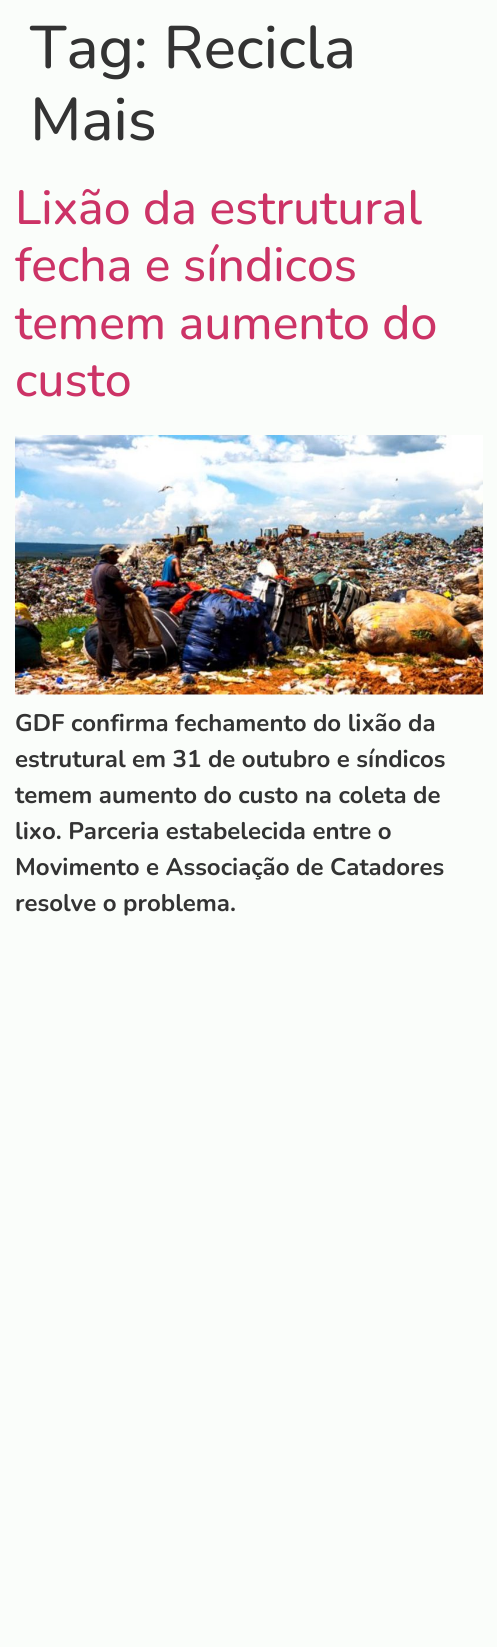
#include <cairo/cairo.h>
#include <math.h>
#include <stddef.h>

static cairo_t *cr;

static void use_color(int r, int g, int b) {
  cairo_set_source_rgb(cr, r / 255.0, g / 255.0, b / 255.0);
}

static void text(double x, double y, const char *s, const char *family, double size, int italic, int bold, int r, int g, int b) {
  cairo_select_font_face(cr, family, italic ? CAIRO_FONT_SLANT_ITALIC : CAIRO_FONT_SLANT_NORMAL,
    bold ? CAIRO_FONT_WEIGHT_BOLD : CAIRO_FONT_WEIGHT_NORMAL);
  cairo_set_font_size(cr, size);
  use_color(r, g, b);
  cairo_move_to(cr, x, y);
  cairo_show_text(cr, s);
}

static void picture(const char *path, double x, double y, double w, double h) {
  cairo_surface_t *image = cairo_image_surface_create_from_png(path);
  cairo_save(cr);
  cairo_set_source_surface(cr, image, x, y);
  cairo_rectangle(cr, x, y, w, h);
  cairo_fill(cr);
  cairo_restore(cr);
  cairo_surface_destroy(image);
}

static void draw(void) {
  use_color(250, 253, 250);
  cairo_paint(cr);
  picture("img_01.png", 15, 435, 468, 260);
  text(30, 68, "Tag: Recicla", "Nunito Medium", 60, 0, 0, 51, 51, 51);
  text(30, 140, "Mais", "Nunito Medium", 60, 0, 0, 51, 51, 51);
  text(15, 224, "Lixão da estrutural", "Nunito Medium", 48, 0, 0, 204, 51, 102);
  text(15, 281, "fecha e síndicos", "Nunito Medium", 48, 0, 0, 204, 51, 102);
  text(15, 339, "temem aumento do", "Nunito Medium", 48, 0, 0, 204, 51, 102);
  text(15, 396, "custo", "Nunito Medium", 48, 0, 0, 204, 51, 102);
  text(15, 731, "GDF confirma fechamento do lixão da", "Nunito", 24, 0, 1, 51, 51, 51);
  text(15, 767, "estrutural em 31 de outubro e síndicos", "Nunito", 24, 0, 1, 51, 51, 51);
  text(15, 803, "temem aumento do custo na coleta de", "Nunito", 24, 0, 1, 51, 51, 51);
  text(15, 839, "lixo. Parceria estabelecida entre o", "Nunito", 24, 0, 1, 51, 51, 51);
  text(15, 875, "Movimento e Associação de Catadores", "Nunito", 24, 0, 1, 51, 51, 51);
  text(15, 911, "resolve o problema.", "Nunito", 24, 0, 1, 51, 51, 51);
}

int main(void) {
  cairo_surface_t *surface = cairo_image_surface_create(CAIRO_FORMAT_RGB24, 497, 1647);
  cr = cairo_create(surface);
  cairo_font_options_t *options = cairo_font_options_create();
  cairo_font_options_set_hint_metrics(options, CAIRO_HINT_METRICS_OFF);
  cairo_font_options_set_hint_style(options, CAIRO_HINT_STYLE_NONE);
  cairo_set_font_options(cr, options);
  cairo_set_miter_limit(cr, 4);
  draw();
  cairo_surface_write_to_png(surface, "out.png");
  cairo_font_options_destroy(options);
  cairo_destroy(cr);
  cairo_surface_destroy(surface);
  return 0;
}
